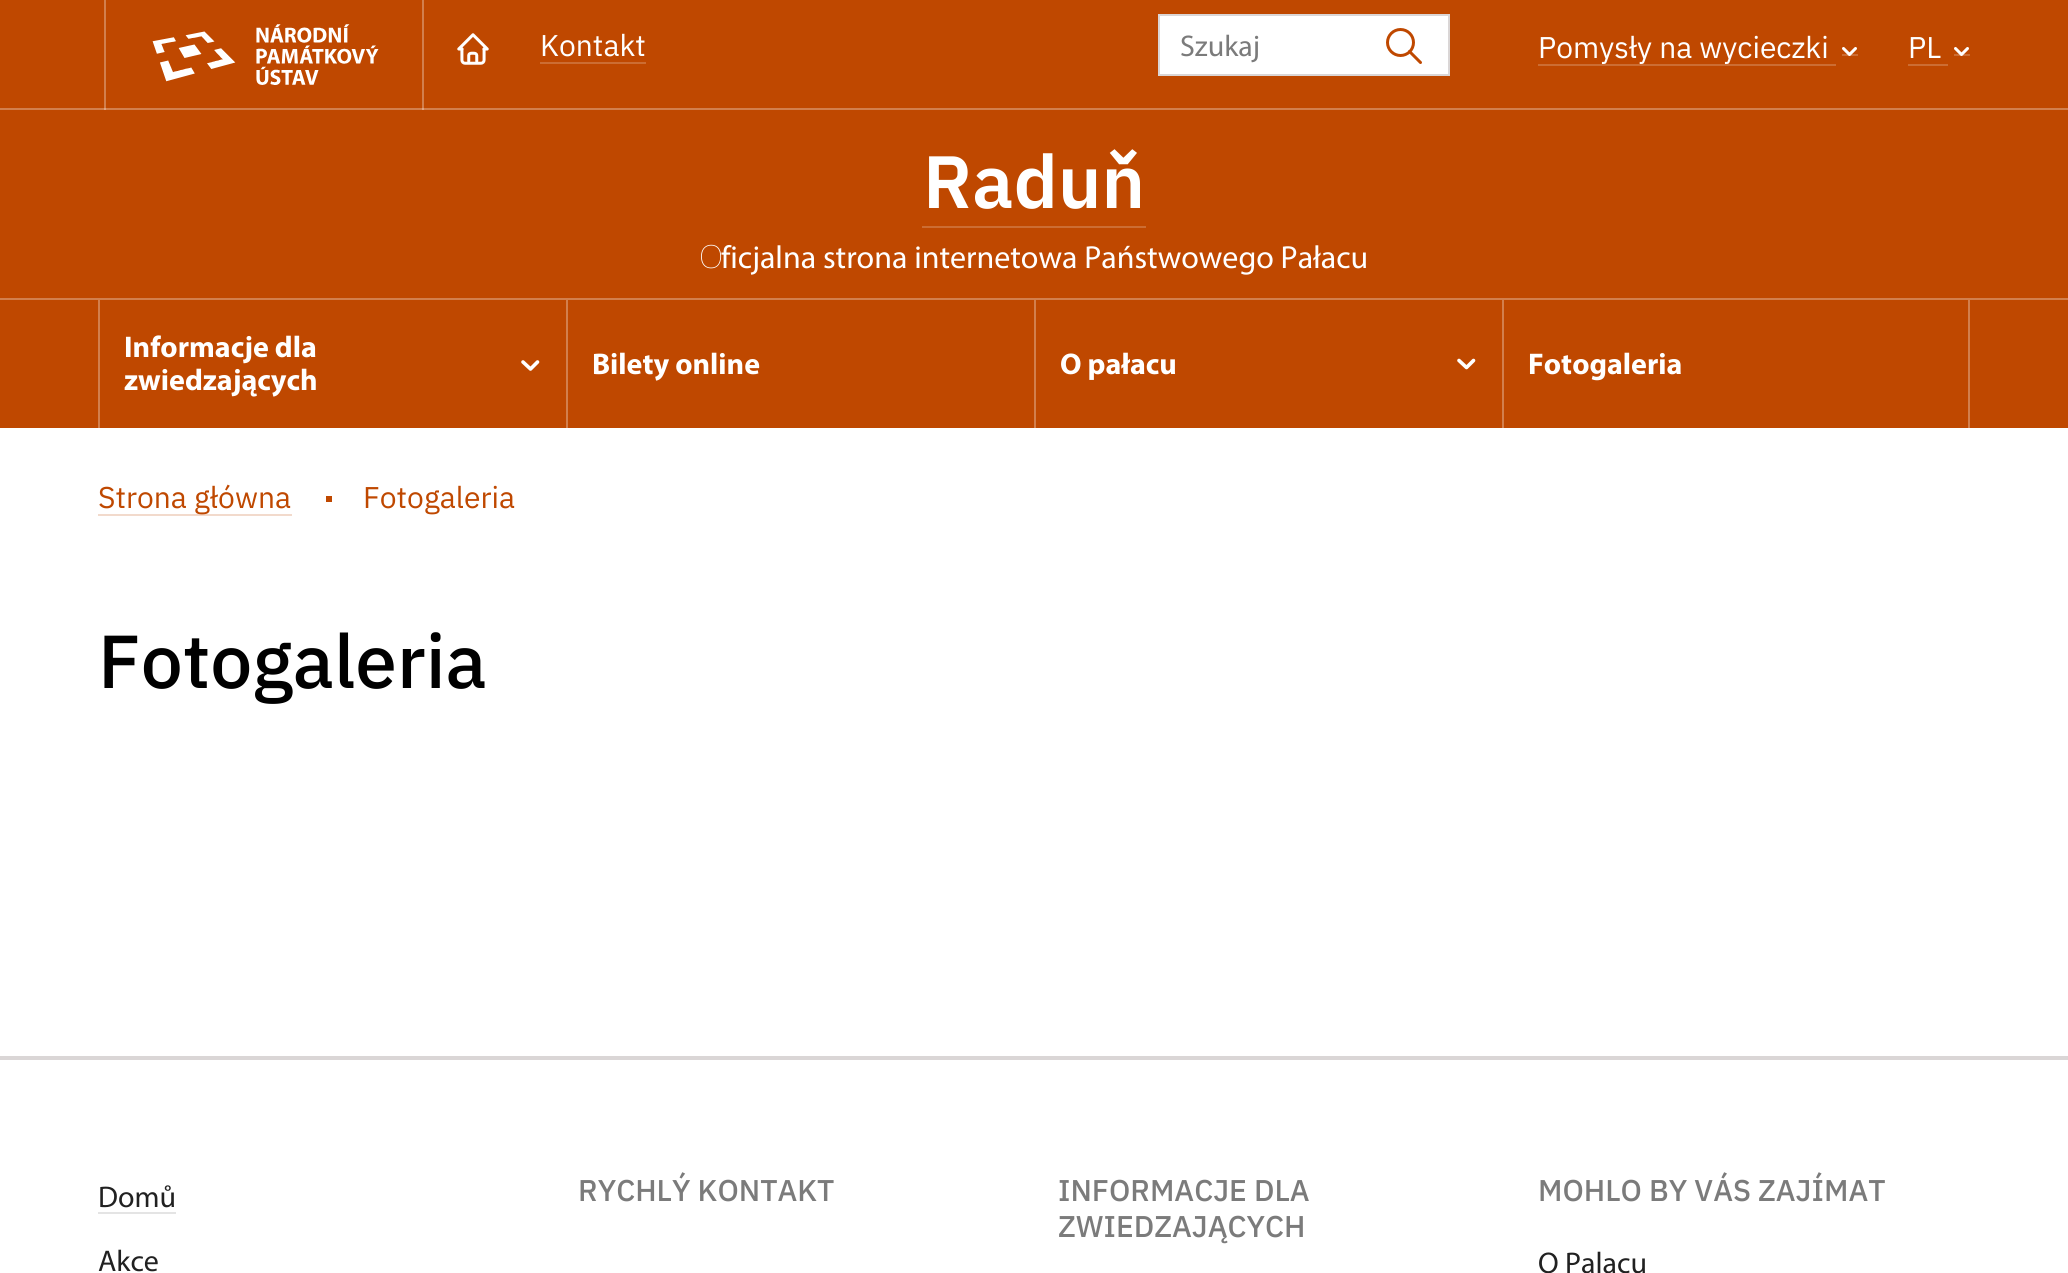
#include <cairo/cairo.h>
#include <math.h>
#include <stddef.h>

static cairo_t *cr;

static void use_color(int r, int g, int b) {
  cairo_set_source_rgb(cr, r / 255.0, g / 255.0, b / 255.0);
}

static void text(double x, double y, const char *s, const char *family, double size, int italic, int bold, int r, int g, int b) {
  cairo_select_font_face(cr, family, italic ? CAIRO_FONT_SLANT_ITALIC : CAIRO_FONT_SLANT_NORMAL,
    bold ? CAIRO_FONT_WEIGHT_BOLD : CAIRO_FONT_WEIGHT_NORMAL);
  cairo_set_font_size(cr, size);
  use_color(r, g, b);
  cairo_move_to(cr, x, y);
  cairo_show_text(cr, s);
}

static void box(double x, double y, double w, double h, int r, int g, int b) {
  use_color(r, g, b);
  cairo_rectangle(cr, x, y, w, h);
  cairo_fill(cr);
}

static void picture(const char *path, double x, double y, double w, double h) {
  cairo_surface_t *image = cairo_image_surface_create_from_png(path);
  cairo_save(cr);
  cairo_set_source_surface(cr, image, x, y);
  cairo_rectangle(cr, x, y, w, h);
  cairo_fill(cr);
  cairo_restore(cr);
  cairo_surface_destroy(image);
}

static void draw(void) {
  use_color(255, 255, 255);
  cairo_paint(cr);
  box(0, 0, 2068, 428, 191, 72, 0);
  box(104, 0, 2, 110, 210, 127, 77);
  box(422, 0, 2, 110, 210, 127, 77);
  box(0, 108, 2068, 2, 210, 127, 77);
  box(104, 108, 2, 2, 224, 165, 130);
  box(422, 108, 2, 2, 224, 165, 130);
  picture("img_01.png", 152, 24, 227, 61);
  picture("img_02.png", 457, 33, 32, 32);
  box(540, 62, 106, 2, 204, 109, 51);
  use_color(255, 255, 255);
  cairo_rectangle(cr, 1159, 15, 290, 60);
  cairo_fill_preserve(cr);
  use_color(218, 214, 214);
  cairo_stroke(cr);
  cairo_arc(cr, 1400.5, 42.5, 13, 0, 2 * M_PI);
  use_color(191, 72, 0);
  cairo_set_line_width(cr, 3);
  cairo_stroke(cr);
  cairo_new_path(cr);
  cairo_move_to(cr, 1420.5, 62.5);
  cairo_line_to(cr, 1409.5, 51.5);
  cairo_set_line_cap(cr, CAIRO_LINE_CAP_ROUND);
  cairo_set_line_join(cr, CAIRO_LINE_JOIN_ROUND);
  cairo_stroke(cr);
  box(1538, 64, 298, 2, 204, 109, 51);
  box(1842, 54, 16, 2, 204, 109, 51);
  cairo_new_path(cr);
  cairo_move_to(cr, 1855.5, 48.5);
  cairo_line_to(cr, 1849.5, 54.5);
  cairo_line_to(cr, 1843.5, 48.5);
  use_color(255, 255, 255);
  cairo_stroke(cr);
  box(1908, 64, 40, 2, 204, 109, 51);
  box(1954, 54, 16, 2, 204, 109, 51);
  cairo_new_path(cr);
  cairo_move_to(cr, 1967.5, 48.5);
  cairo_line_to(cr, 1961.5, 54.5);
  cairo_line_to(cr, 1955.5, 48.5);
  use_color(255, 255, 255);
  cairo_stroke(cr);
  box(0, 298, 2068, 2, 210, 127, 77);
  box(922, 226, 224, 2, 204, 109, 51);
  box(98, 300, 2, 128, 210, 127, 77);
  cairo_new_path(cr);
  cairo_move_to(cr, 537.5, 362);
  cairo_line_to(cr, 530.5, 369);
  cairo_line_to(cr, 523, 362);
  use_color(255, 255, 255);
  cairo_set_line_width(cr, 3.6);
  cairo_stroke(cr);
  box(566, 300, 2, 128, 210, 127, 77);
  box(1034, 300, 2, 128, 210, 127, 77);
  cairo_new_path(cr);
  cairo_move_to(cr, 1473.5, 360.5);
  cairo_line_to(cr, 1466.5, 367.5);
  cairo_line_to(cr, 1459, 360.5);
  use_color(255, 255, 255);
  cairo_stroke(cr);
  box(1968, 300, 2, 128, 210, 127, 77);
  box(1502, 300, 2, 128, 210, 127, 77);
  box(98, 514, 194, 2, 242, 218, 204);
  box(326, 496, 6, 6, 191, 72, 0);
  box(0, 1056, 2068, 4, 218, 214, 214);
  box(98, 1212, 78, 2, 228, 228, 228);
  text(540, 56, "Kontakt", "IBM Plex Sans", 30, 0, 0, 255, 255, 255);
  text(1180, 56, "Szukaj", "Myriad", 30, 0, 0, 123, 123, 123);
  text(1538, 58, "Pomysły na wycieczki", "IBM Plex Sans", 30, 0, 0, 255, 255, 255);
  text(1908, 58, "PL", "IBM Plex Sans", 30, 0, 0, 255, 255, 255);
  text(923, 208, "Raduň", "IBM Plex Sans SemiBold", 74, 0, 0, 255, 255, 255);
  text(699, 268, "O", "Noto Sans Thin", 32, 0, 0, 255, 255, 255);
  text(721, 268, "ficjalna strona internetowa Państwowego Pałacu", "Myriad", 32, 0, 0, 255, 255, 255);
  text(124, 357, "Informacje dla", "Myriad", 30, 0, 1, 255, 255, 255);
  text(124, 390, "zwiedzających", "Myriad", 30, 0, 1, 255, 255, 255);
  text(592, 374, "Bilety online", "Myriad", 30, 0, 1, 255, 255, 255);
  text(1060, 374, "O pałacu", "Myriad", 30, 0, 1, 255, 255, 255);
  text(1528, 374, "Fotogaleria", "Myriad", 30, 0, 1, 255, 255, 255);
  text(98, 508, "Strona główna", "IBM Plex Sans", 30, 0, 0, 191, 72, 0);
  text(363, 508, "Fotogaleria", "IBM Plex Sans", 30, 0, 0, 191, 72, 0);
  text(98, 688, "Fotogaleria", "IBM Plex Sans Medium", 75, 0, 0, 0, 0, 0);
  text(98, 1207, "Domů", "Myriad", 30, 0, 0, 33, 33, 33);
  text(98, 1271, "Akce", "Myriad", 30, 0, 0, 33, 33, 33);
  text(578, 1201, "RYCHLÝ KONTAKT", "IBM Plex Sans Medium", 30, 0, 0, 123, 123, 123);
  text(1058, 1201, "INFORMACJE DLA", "IBM Plex Sans Medium", 30, 0, 0, 123, 123, 123);
  text(1058, 1237, "ZWIEDZAJĄCYCH", "IBM Plex Sans Medium", 30, 0, 0, 123, 123, 123);
  text(1538, 1201, "MOHLO BY VÁS ZAJÍMAT", "IBM Plex Sans Medium", 30, 0, 0, 123, 123, 123);
  text(1538, 1273, "O Palacu", "Myriad", 30, 0, 0, 33, 33, 33);
}

int main(void) {
  cairo_surface_t *surface = cairo_image_surface_create(CAIRO_FORMAT_RGB24, 2068, 1273);
  cr = cairo_create(surface);
  cairo_font_options_t *options = cairo_font_options_create();
  cairo_font_options_set_hint_metrics(options, CAIRO_HINT_METRICS_OFF);
  cairo_font_options_set_hint_style(options, CAIRO_HINT_STYLE_NONE);
  cairo_set_font_options(cr, options);
  cairo_set_miter_limit(cr, 4);
  draw();
  cairo_surface_write_to_png(surface, "out.png");
  cairo_font_options_destroy(options);
  cairo_destroy(cr);
  cairo_surface_destroy(surface);
  return 0;
}
